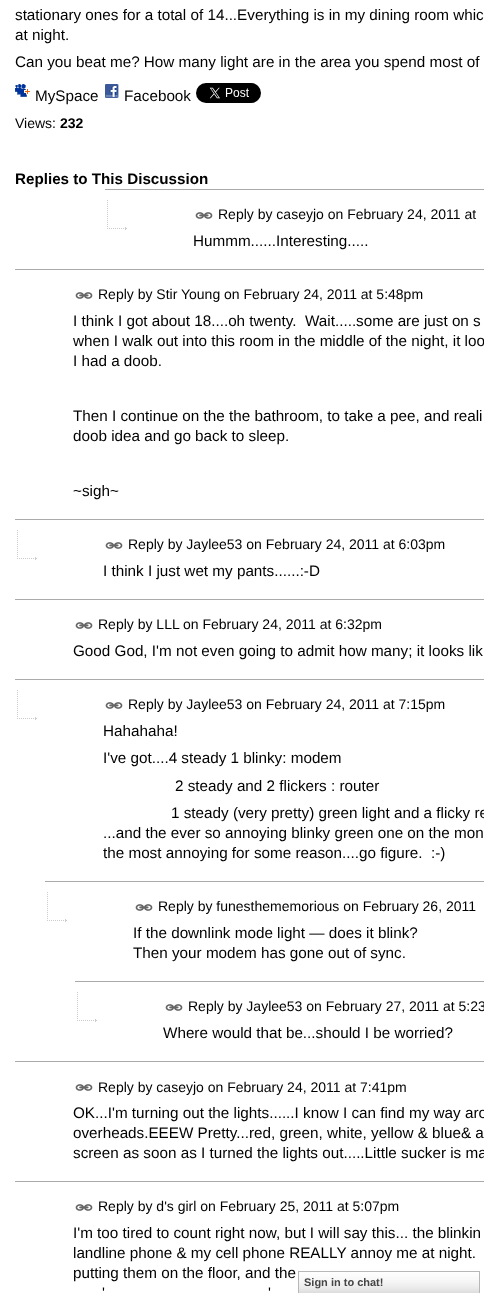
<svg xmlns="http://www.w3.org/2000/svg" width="484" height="1293">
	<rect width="100%" height="100%" fill="#FFFFFF" />
	<g font-family="Liberation Sans" font-size="15.25" fill="#000000">
		<text x="15" y="20">stationary ones for a total of 14...Everything is in my dining room whic</text>
		<text x="15" y="40">at night.</text>
		<text x="15" y="67">Can you beat me? How many light are in the area you spend most of</text>
	</g>
	<image x="15" y="84" width="15" height="13" href="assets/img1.png" />
	<text x="35" y="101" font-family="Liberation Sans" font-size="15.25" fill="#000000">MySpace</text>
	<image x="105" y="84" width="14" height="14" href="assets/img2.png" />
	<text x="124" y="101" font-family="Liberation Sans" font-size="15.25" fill="#000000">Facebook</text>
	<image x="196" y="83" width="65" height="20" href="assets/img3.png" />
	<text x="15" y="128" font-family="Liberation Sans" font-size="14" fill="#000000">Views:</text>
	<text x="60" y="128" font-family="Liberation Sans" font-size="14" font-weight="700" fill="#000000">232</text>
	<text x="15" y="184" font-family="Liberation Sans" font-size="15.2" font-weight="700" fill="#000000">Replies to This Discussion</text>
	<image x="107" y="200" width="20" height="30" href="assets/img4.png" />
	<rect x="105" y="189" width="379" height="1" fill="#AAAAAA" />
	<image x="195" y="212" width="18" height="7" href="assets/img5.png" />
	<text x="218" y="219" font-family="Liberation Sans" font-size="14" fill="#000000">Reply by caseyjo on February 24, 2011 at</text>
	<text x="193" y="246" font-family="Liberation Sans" font-size="15.25" fill="#000000">Hummm......Interesting.....</text>
	<rect x="15" y="269" width="469" height="1" fill="#AAAAAA" />
	<image x="75" y="292" width="18" height="7" href="assets/img5.png" />
	<text x="98" y="299" font-family="Liberation Sans" font-size="14" fill="#000000">Reply by Stir Young on February 24, 2011 at 5:48pm</text>
	<g font-family="Liberation Sans" font-size="15.25" fill="#000000">
		<text x="73" y="326" xml:space="preserve">I think I got about 18....oh twenty.  Wait.....some are just on s</text>
		<text x="73" y="346">when I walk out into this room in the middle of the night, it loo</text>
		<text x="73" y="366">I had a doob.</text>
		<text x="73" y="421">Then I continue on the the bathroom, to take a pee, and reali</text>
		<text x="73" y="441">doob idea and go back to sleep.</text>
		<text x="73" y="496">~sigh~</text>
	</g>
	<image x="17" y="530" width="20" height="30" href="assets/img4.png" />
	<rect x="15" y="519" width="469" height="1" fill="#AAAAAA" />
	<image x="105" y="542" width="18" height="7" href="assets/img5.png" />
	<text x="128" y="549" font-family="Liberation Sans" font-size="14" fill="#000000">Reply by Jaylee53 on February 24, 2011 at 6:03pm</text>
	<text x="103" y="576" font-family="Liberation Sans" font-size="15.25" fill="#000000">I think I just wet my pants......:-D</text>
	<rect x="15" y="599" width="469" height="1" fill="#AAAAAA" />
	<image x="75" y="622" width="18" height="7" href="assets/img5.png" />
	<g font-family="Liberation Sans" font-size="14" fill="#000000">
		<text x="98" y="629">Reply by LLL</text>
		<text x="183" y="629">on February 24, 2011 at 6:32pm</text>
	</g>
	<text x="73" y="656" font-family="Liberation Sans" font-size="15.25" fill="#000000">Good God, I'm not even going to admit how many; it looks lik</text>
	<image x="17" y="690" width="20" height="30" href="assets/img4.png" />
	<rect x="15" y="679" width="469" height="1" fill="#AAAAAA" />
	<image x="105" y="702" width="18" height="7" href="assets/img5.png" />
	<text x="128" y="709" font-family="Liberation Sans" font-size="14" fill="#000000">Reply by Jaylee53 on February 24, 2011 at 7:15pm</text>
	<g font-family="Liberation Sans" font-size="15.25" fill="#000000">
		<text x="103" y="736">Hahahaha!</text>
		<text x="103" y="763">I've got....4 steady 1 blinky: modem</text>
		<text x="175" y="791">2 steady and 2 flickers : router</text>
		<text x="171" y="818">1 steady (very pretty) green light and a flicky re</text>
		<text x="103" y="838">...and the ever so annoying blinky green one on the mon</text>
		<text x="103" y="858" xml:space="preserve">the most annoying for some reason....go figure.  :-)</text>
	</g>
	<image x="47" y="892" width="20" height="30" href="assets/img4.png" />
	<rect x="45" y="881" width="439" height="1" fill="#AAAAAA" />
	<image x="135" y="904" width="18" height="7" href="assets/img5.png" />
	<text x="158" y="911" font-family="Liberation Sans" font-size="14" fill="#000000">Reply by funesthememorious on February 26, 2011</text>
	<g font-family="Liberation Sans" font-size="15.25" fill="#000000">
		<text x="133" y="938">If the downlink mode light — does it blink?</text>
		<text x="133" y="958">Then your modem has gone out of sync.</text>
	</g>
	<image x="77" y="992" width="20" height="30" href="assets/img4.png" />
	<rect x="75" y="981" width="409" height="1" fill="#AAAAAA" />
	<image x="165" y="1004" width="18" height="7" href="assets/img5.png" />
	<text x="188" y="1011" font-family="Liberation Sans" font-size="14" fill="#000000">Reply by Jaylee53 on February 27, 2011 at 5:23</text>
	<text x="163" y="1038" font-family="Liberation Sans" font-size="15.25" fill="#000000">Where would that be...should I be worried?</text>
	<rect x="15" y="1061" width="469" height="1" fill="#AAAAAA" />
	<image x="75" y="1084" width="18" height="7" href="assets/img5.png" />
	<text x="98" y="1092" font-family="Liberation Sans" font-size="14" fill="#000000">Reply by caseyjo on February 24, 2011 at 7:41pm</text>
	<g font-family="Liberation Sans" font-size="15.25" fill="#000000">
		<text x="73" y="1118">OK...I'm turning out the lights......I know I can find my way aro</text>
		<text x="73" y="1138">overheads.EEEW Pretty...red, green, white, yellow &amp; blue&amp; a</text>
		<text x="73" y="1158">screen as soon as I turned the lights out.....Little sucker is ma</text>
	</g>
	<rect x="15" y="1181" width="469" height="1" fill="#AAAAAA" />
	<image x="75" y="1204" width="18" height="7" href="assets/img5.png" />
	<text x="98" y="1211" font-family="Liberation Sans" font-size="14" fill="#000000">Reply by d's girl on February 25, 2011 at 5:07pm</text>
	<g font-family="Liberation Sans" font-size="15.25" fill="#000000">
		<text x="73" y="1238">I'm too tired to count right now, but I will say this... the blinkin</text>
		<text x="73" y="1258">landline phone &amp; my cell phone REALLY annoy me at night.</text>
		<text x="73" y="1278">putting them on the floor, and the</text>
		<text x="102" y="1298">'</text>
		<text x="268" y="1298">'</text>
	</g>
	<image x="299" y="1272" width="180" height="21" href="assets/img6.png" />
	<rect x="298.5" y="1271.5" width="181" height="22" fill="none" stroke="#B7B7B7" />
	<text x="304" y="1286" font-family="Liberation Sans" font-size="11" font-weight="700" fill="#454545">Sign in to chat!</text>
</svg>
